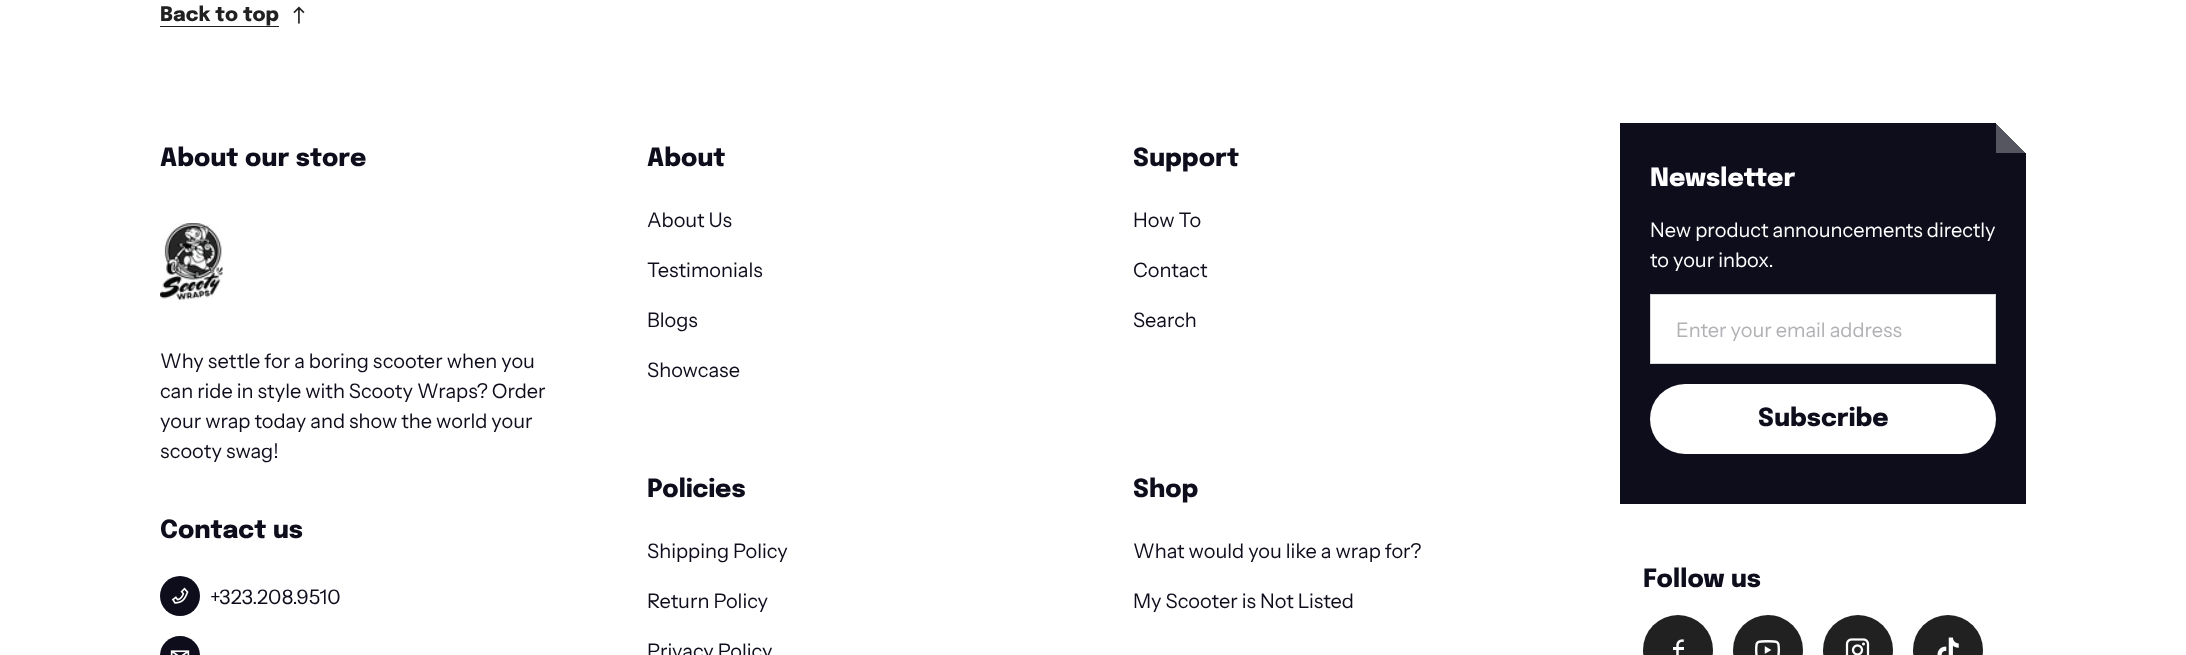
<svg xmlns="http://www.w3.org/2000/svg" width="2186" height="655">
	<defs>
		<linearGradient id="g1" gradientUnits="userSpaceOnUse" x1="1996" y1="153" x2="2026" y2="123"><stop offset="0.5" stop-color="#565660" /><stop offset="0.5" stop-color="#FFFFFF" /></linearGradient>
	</defs>
	<rect width="100%" height="100%" fill="#FFFFFF" />
	<text x="160" y="21" font-family="Epilogue" font-size="20" font-weight="800" fill="#212121">Back to top</text>
	<rect x="160" y="26" width="119" height="1" fill="#212121" />
	<image x="293" y="6" width="12" height="18" href="assets/img1.png" />
	<text x="160" y="166" font-family="Epilogue" font-size="25" font-weight="800" fill="#0E0D1C">About our store</text>
	<image x="160" y="223" width="63" height="77" href="assets/img2.png" />
	<g font-family="Instrument Sans" font-size="20" fill="#0E0D1C">
		<text x="160" y="368">Why settle for a boring scooter when you</text>
		<text x="160" y="398">can ride in style with Scooty Wraps? Order</text>
		<text x="160" y="428">your wrap today and show the world your</text>
		<text x="160" y="458">scooty swag!</text>
	</g>
	<text x="160" y="538" font-family="Epilogue" font-size="25" font-weight="800" fill="#0E0D1C">Contact us</text>
	<circle cx="180" cy="596" r="20" fill="#0E0D1C" />
	<image x="171" y="587" width="18" height="17" href="assets/img3.png" />
	<text x="210" y="604" font-family="Instrument Sans" font-size="20" fill="#0E0D1C">+323.208.9510</text>
	<rect x="160" y="636" width="40" height="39" rx="20" fill="#0E0D1C" />
	<image x="170" y="650" width="20" height="5" href="assets/img4.png" />
	<text x="647" y="166" font-family="Epilogue" font-size="25" font-weight="800" fill="#0E0D1C">About</text>
	<g font-family="Instrument Sans" font-size="20" fill="#0E0D1C">
		<text x="647" y="227">About Us</text>
		<text x="647" y="277">Testimonials</text>
		<text x="647" y="327">Blogs</text>
		<text x="647" y="377">Showcase</text>
	</g>
	<text x="1133" y="166" font-family="Epilogue" font-size="25" font-weight="800" fill="#0E0D1C">Support</text>
	<g font-family="Instrument Sans" font-size="20" fill="#0E0D1C">
		<text x="1133" y="227">How To</text>
		<text x="1133" y="277">Contact</text>
		<text x="1133" y="327">Search</text>
	</g>
	<text x="647" y="497" font-family="Epilogue" font-size="25" font-weight="800" fill="#0E0D1C">Policies</text>
	<g font-family="Instrument Sans" font-size="20" fill="#0E0D1C">
		<text x="647" y="558">Shipping Policy</text>
		<text x="647" y="608">Return Policy</text>
		<text x="647" y="658">Privacy Policy</text>
	</g>
	<text x="1133" y="497" font-family="Epilogue" font-size="25" font-weight="800" fill="#0E0D1C">Shop</text>
	<g font-family="Instrument Sans" font-size="20" fill="#0E0D1C">
		<text x="1133" y="558">What would you like a wrap for?</text>
		<text x="1133" y="608">My Scooter is Not Listed</text>
	</g>
	<rect x="1620" y="123" width="406" height="381" fill="#0E0D1C" />
	<rect x="1996" y="123" width="30" height="30" fill="url(#g1)" />
	<text x="1650" y="186" font-family="Epilogue" font-size="25" font-weight="800" fill="#FFFFFF">Newsletter</text>
	<g font-family="Instrument Sans" font-size="20" fill="#FFFFFF">
		<text x="1650" y="237">New product announcements directly</text>
		<text x="1650" y="267">to your inbox.</text>
	</g>
	<rect x="1650.5" y="294.5" width="345" height="69" fill="#FFFFFF" stroke="#D8D8DB" />
	<text x="1676" y="337" font-family="Instrument Sans" font-size="20" fill="#B2B2B6">Enter your email address</text>
	<rect x="1650" y="384" width="346" height="70" rx="35" fill="#FFFFFF" />
	<g font-family="Epilogue" font-size="25" font-weight="800" fill="#0E0D1C">
		<text x="1758" y="426">Subscribe</text>
		<text x="1643" y="587">Follow us</text>
	</g>
	<circle cx="1678" cy="650" r="35" fill="#212121" />
	<image x="1673" y="639" width="11" height="16" href="assets/img5.png" />
	<circle cx="1768" cy="650" r="35" fill="#212121" />
	<image x="1755" y="640" width="25" height="15" href="assets/img6.png" />
	<circle cx="1858" cy="650" r="35" fill="#212121" />
	<image x="1845" y="638" width="25" height="17" href="assets/img7.png" />
	<circle cx="1948" cy="650" r="35" fill="#212121" />
	<image x="1937" y="637" width="22" height="18" href="assets/img8.png" />
</svg>
